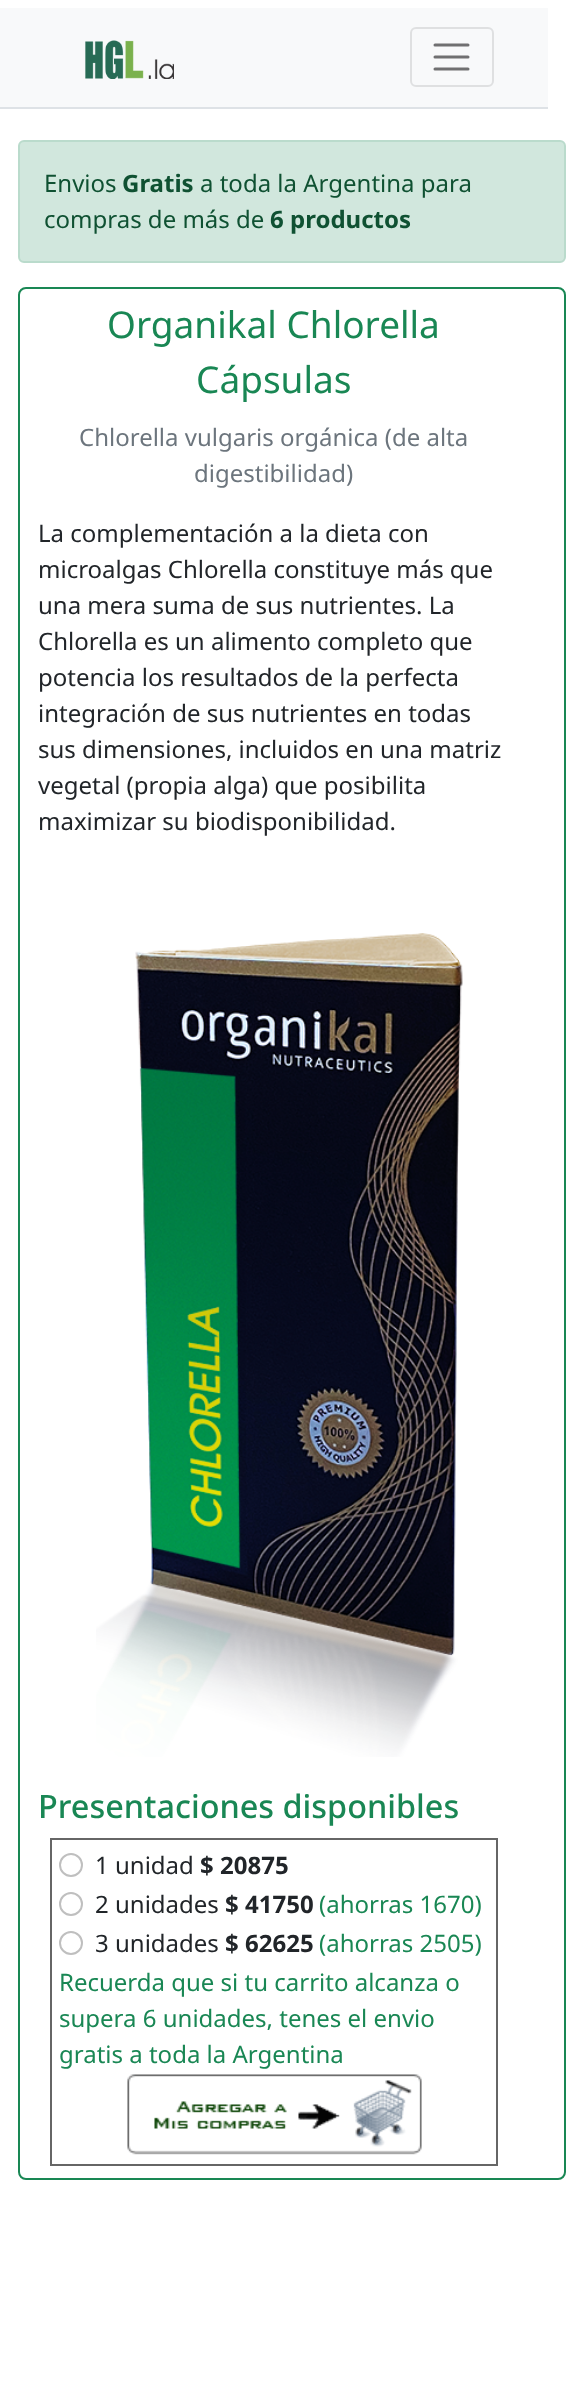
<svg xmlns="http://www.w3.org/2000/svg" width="583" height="2401">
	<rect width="100%" height="100%" fill="#FFFFFF" />
	<rect x="0" y="8" width="548" height="99" fill="#F8F9FA" />
	<rect x="0" y="107" width="548" height="2" fill="#DEE2E6" />
	<image x="85" y="40" width="89" height="39" href="assets/img1.png" />
	<rect x="411" y="28" width="82" height="58" rx="5" fill="none" stroke="#DFE0E1" stroke-width="2" />
	<path d="M435 45H468M435 57H468M435 69H468" fill="none" stroke="#707071" stroke-width="3" stroke-linecap="round" />
	<rect x="19" y="141" width="546" height="121" rx="5" fill="#D1E7DD" stroke="#BADBCC" stroke-width="2" />
	<text x="44" y="192" font-family="Noto Sans" font-size="24" fill="#0F5132">Envios</text>
	<text x="122" y="192" font-family="Noto Sans" font-size="24" font-weight="700" fill="#0F5132">Gratis</text>
	<g font-family="Noto Sans" font-size="24" fill="#0F5132">
		<text x="200" y="192">a toda la Argentina para</text>
		<text x="44" y="228">compras de más de</text>
	</g>
	<text x="270" y="228" font-family="Noto Sans" font-size="24" font-weight="700" fill="#0F5132">6 productos</text>
	<rect x="19" y="288" width="546" height="1891" rx="7" fill="none" stroke="#198754" stroke-width="2" />
	<g font-family="Noto Sans" font-size="37" fill="#198754">
		<text x="107" y="338">Organikal Chlorella</text>
		<text x="196" y="393">Cápsulas</text>
	</g>
	<g font-family="Noto Sans" font-size="24" fill="#6C757D">
		<text x="79" y="446">Chlorella vulgaris orgánica (de alta</text>
		<text x="194" y="482">digestibilidad)</text>
	</g>
	<g font-family="Noto Sans" font-size="24" fill="#212529">
		<text x="38" y="542">La complementación a la dieta con</text>
		<text x="38" y="578">microalgas Chlorella constituye más que</text>
		<text x="38" y="614">una mera suma de sus nutrientes. La</text>
		<text x="38" y="650">Chlorella es un alimento completo que</text>
		<text x="38" y="686">potencia los resultados de la perfecta</text>
		<text x="38" y="722">integración de sus nutrientes en todas</text>
		<text x="38" y="758">sus dimensiones, incluidos en una matriz</text>
		<text x="38" y="794">vegetal (propia alga) que posibilita</text>
		<text x="38" y="830">maximizar su biodisponibilidad.</text>
	</g>
	<image x="96" y="933" width="367" height="824" href="assets/img2.png" />
	<text x="38" y="1818" font-family="Noto Sans" font-size="32.4" font-weight="500" fill="#198754">Presentaciones disponibles</text>
	<rect x="51" y="1839" width="446" height="326" fill="none" stroke="#666666" stroke-width="2" />
	<circle cx="71" cy="1865" r="11" fill="none" stroke="#BFBFBF" stroke-width="2" />
	<text x="95" y="1874" font-family="Noto Sans" font-size="24" fill="#212529">1 unidad</text>
	<text x="200" y="1874" font-family="Noto Sans" font-size="24" font-weight="700" fill="#212529">$ 20875</text>
	<circle cx="71" cy="1904" r="11" fill="none" stroke="#BFBFBF" stroke-width="2" />
	<text x="95" y="1913" font-family="Noto Sans" font-size="24" fill="#212529">2 unidades</text>
	<text x="225" y="1913" font-family="Noto Sans" font-size="24" font-weight="700" fill="#212529">$ 41750</text>
	<text x="319" y="1913" font-family="Noto Sans" font-size="24" fill="#198754">(ahorras 1670)</text>
	<circle cx="71" cy="1943" r="11" fill="none" stroke="#BFBFBF" stroke-width="2" />
	<text x="95" y="1952" font-family="Noto Sans" font-size="24" fill="#212529">3 unidades</text>
	<text x="225" y="1952" font-family="Noto Sans" font-size="24" font-weight="700" fill="#212529">$ 62625</text>
	<g font-family="Noto Sans" font-size="24" fill="#198754">
		<text x="319" y="1952">(ahorras 2505)</text>
		<text x="59" y="1991">Recuerda que si tu carrito alcanza o</text>
		<text x="59" y="2027">supera 6 unidades, tenes el envio</text>
		<text x="59" y="2063">gratis a toda la Argentina</text>
	</g>
	<image x="127" y="2074" width="295" height="81" href="assets/img3.png" />
</svg>
